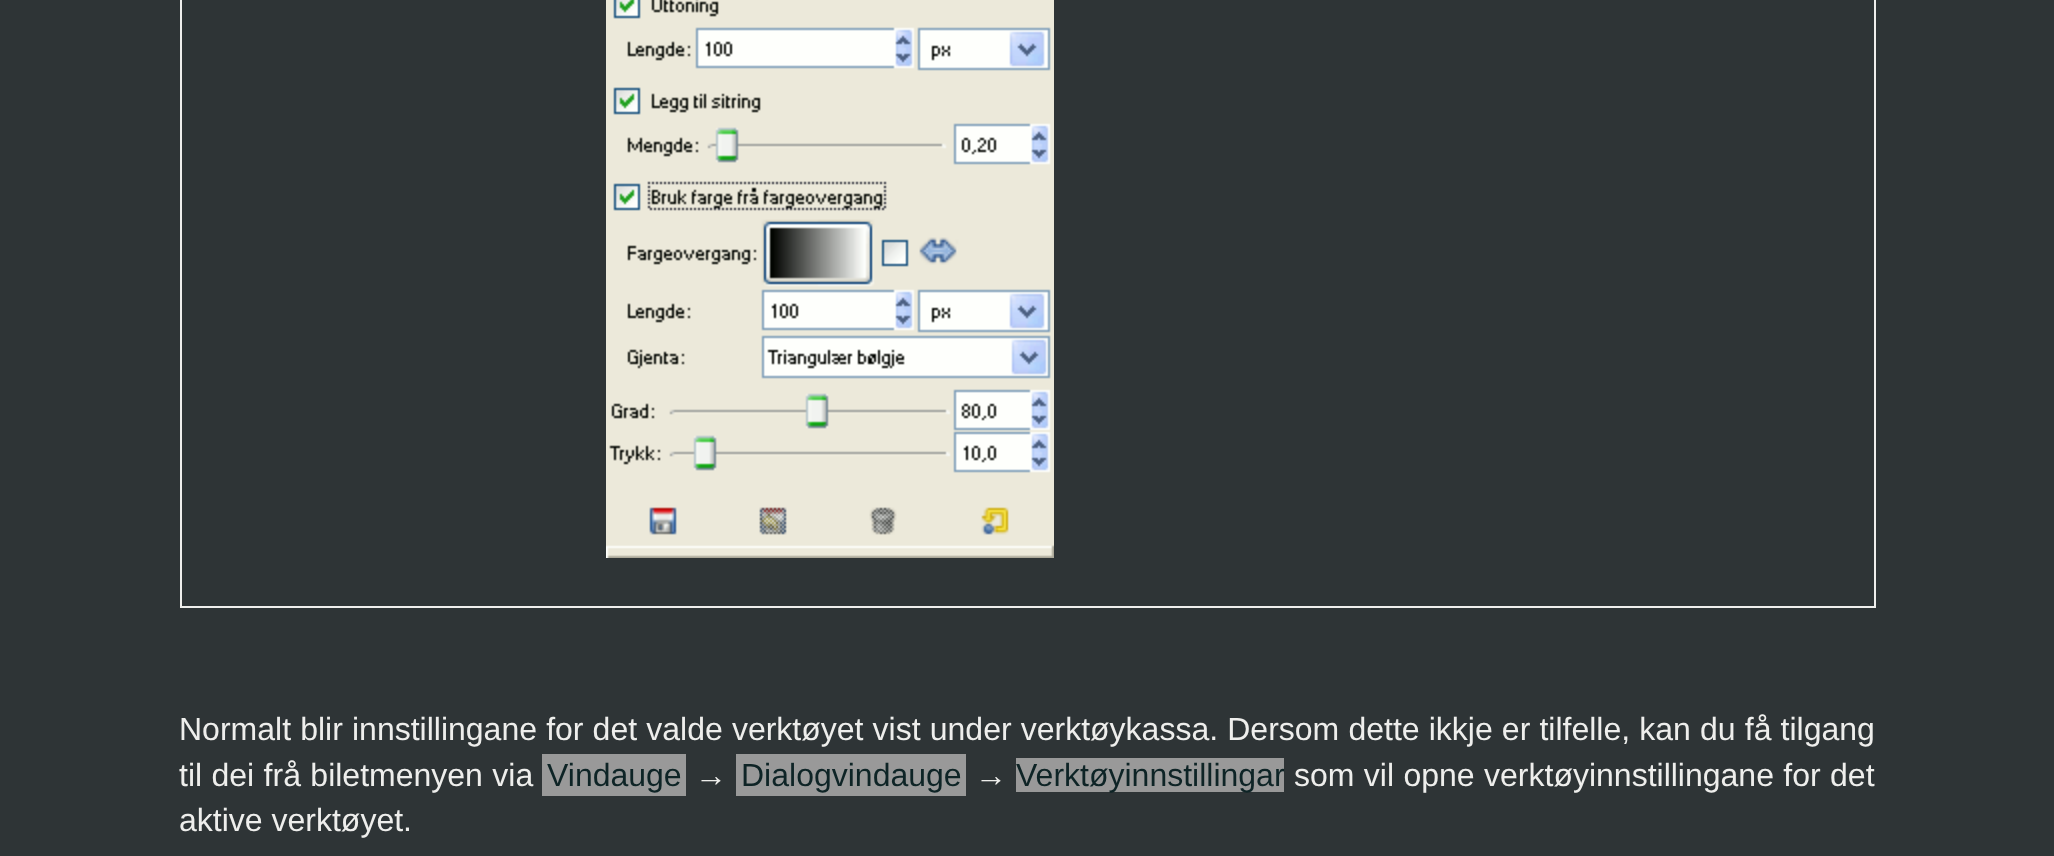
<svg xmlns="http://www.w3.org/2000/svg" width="2054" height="856">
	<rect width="100%" height="100%" fill="#2E3436" />
	<rect x="181" y="-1" width="1694" height="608" fill="none" stroke="#EEEEEC" stroke-width="2" />
	<image x="606" y="0" width="448" height="558" href="assets/img1.png" />
	<g font-family="Liberation Sans" font-size="32" fill="#EEEEEC">
		<text x="179" y="740" word-spacing="0.25">Normalt blir innstillingane for det valde verktøyet vist under verktøykassa. Dersom dette ikkje er tilfelle, kan du få tilgang</text>
		<text x="179" y="786" word-spacing="0.5">til dei frå biletmenyen via</text>
	</g>
	<rect x="542" y="754" width="144" height="42" fill="#999999" />
	<text x="547" y="786" font-family="Liberation Sans" font-size="32" fill="#0E2426">Vindauge</text>
	<text x="695" y="786" font-family="Liberation Sans" font-size="32" fill="#EEEEEC">→</text>
	<rect x="736" y="754" width="230" height="42" fill="#999999" />
	<text x="741" y="786" font-family="Liberation Sans" font-size="32" fill="#0E2426">Dialogvindauge</text>
	<text x="975" y="786" font-family="Liberation Sans" font-size="32" fill="#EEEEEC">→</text>
	<rect x="1016" y="758" width="268" height="34" fill="#999999" />
	<text x="1016" y="786" font-family="Liberation Sans" font-size="32" fill="#0E2426">Verktøyinnstillingar</text>
	<g font-family="Liberation Sans" font-size="32" fill="#EEEEEC">
		<text x="1294" y="786" word-spacing="0.5">som vil opne verktøyinnstillingane for det</text>
		<text x="179" y="831">aktive verktøyet.</text>
	</g>
</svg>
